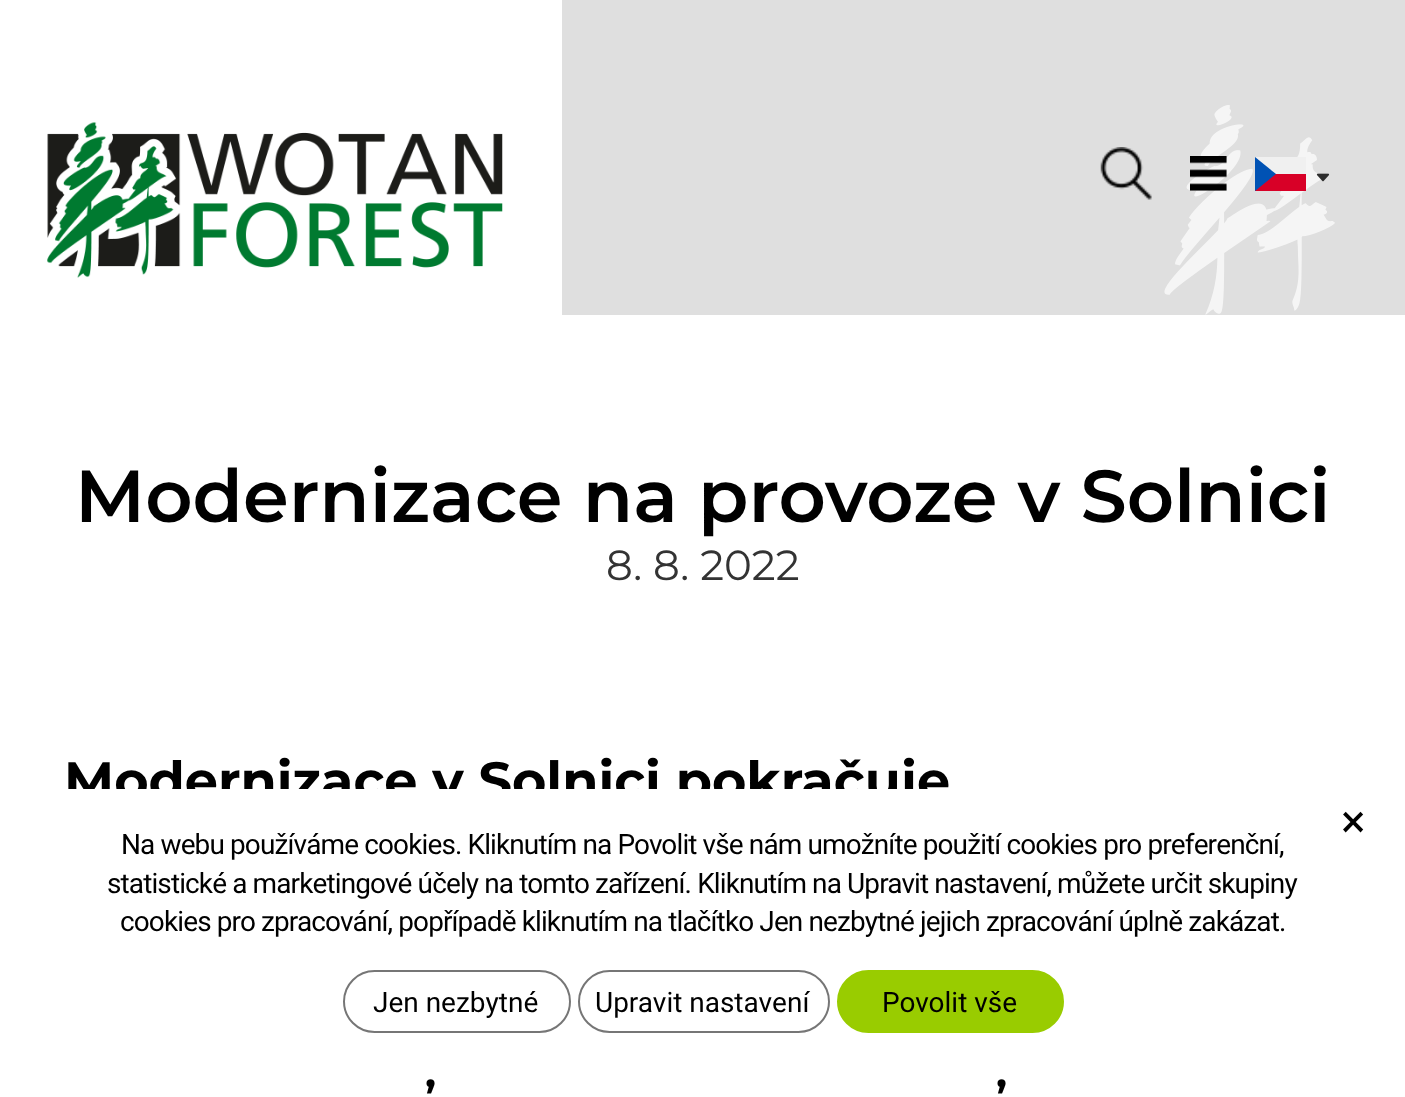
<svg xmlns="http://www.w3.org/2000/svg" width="1405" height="1097">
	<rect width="100%" height="100%" fill="#FFFFFF" />
	<rect x="562" y="0" width="843" height="315" fill="#DFDFDF" />
	<image x="1164" y="105" width="171" height="210" href="assets/img1.png" />
	<image x="47" y="122" width="456" height="156" href="assets/img2.png" />
	<image x="1100" y="147" width="52" height="53" href="assets/img3.png" />
	<image x="1190" y="156" width="37" height="35" href="assets/img4.png" />
	<rect x="1255" y="157" width="21" height="34" fill="#0052B4" />
	<path d="M1306 157V174H1276L1255 157Z" fill="#F0F0F0" />
	<path d="M1306 174V191H1255L1276 174Z" fill="#D80027" />
	<image x="1316" y="173" width="14" height="9" href="assets/img5.png" />
	<text x="75" y="522" font-family="Montserrat" font-size="73.5" font-weight="100" fill="#000000">Modernizace na provoze v Solnici</text>
	<text x="606" y="580" font-family="'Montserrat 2'" font-size="42" font-weight="100" fill="#333333">8. 8. 2022</text>
	<text x="64" y="799" font-family="'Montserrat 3'" font-size="52.5" font-weight="100" fill="#000000">Modernizace v Solnici pokračuje</text>
	<g font-family="'Montserrat 3'" font-size="42" font-weight="100" fill="#000000">
		<text x="425" y="1087">,</text>
		<text x="996" y="1087">,</text>
	</g>
	<rect x="23" y="789" width="1361" height="282" rx="25" fill="#FFFFFF" />
	<text x="1341" y="837" font-family="Roboto" font-size="46" fill="#000000">×</text>
	<g font-family="Roboto" font-size="28" letter-spacing="-0.88" fill="#000000">
		<text x="121" y="854">Na webu používáme cookies. Kliknutím na Povolit vše nám umožníte použití cookies pro preferenční,</text>
		<text x="107" y="893">statistické a marketingové účely na tomto zařízení. Kliknutím na Upravit nastavení, můžete určit skupiny</text>
		<text x="120" y="931">cookies pro zpracování, popřípadě kliknutím na tlačítko Jen nezbytné jejich zpracování úplně zakázat.</text>
	</g>
	<rect x="344" y="971" width="226" height="61" rx="30.5" fill="none" stroke="#767676" stroke-width="2" />
	<text x="373" y="1012" font-family="Roboto" font-size="28" fill="#000000">Jen nezbytné</text>
	<rect x="579" y="971" width="250" height="61" rx="30.5" fill="none" stroke="#767676" stroke-width="2" />
	<text x="595" y="1012" font-family="Roboto" font-size="28" fill="#000000">Upravit nastavení</text>
	<rect x="838" y="971" width="225" height="61" rx="30.5" fill="#99CC00" stroke="#99CC00" stroke-width="2" />
	<text x="882" y="1012" font-family="Roboto" font-size="28" fill="#000000">Povolit vše</text>
</svg>
